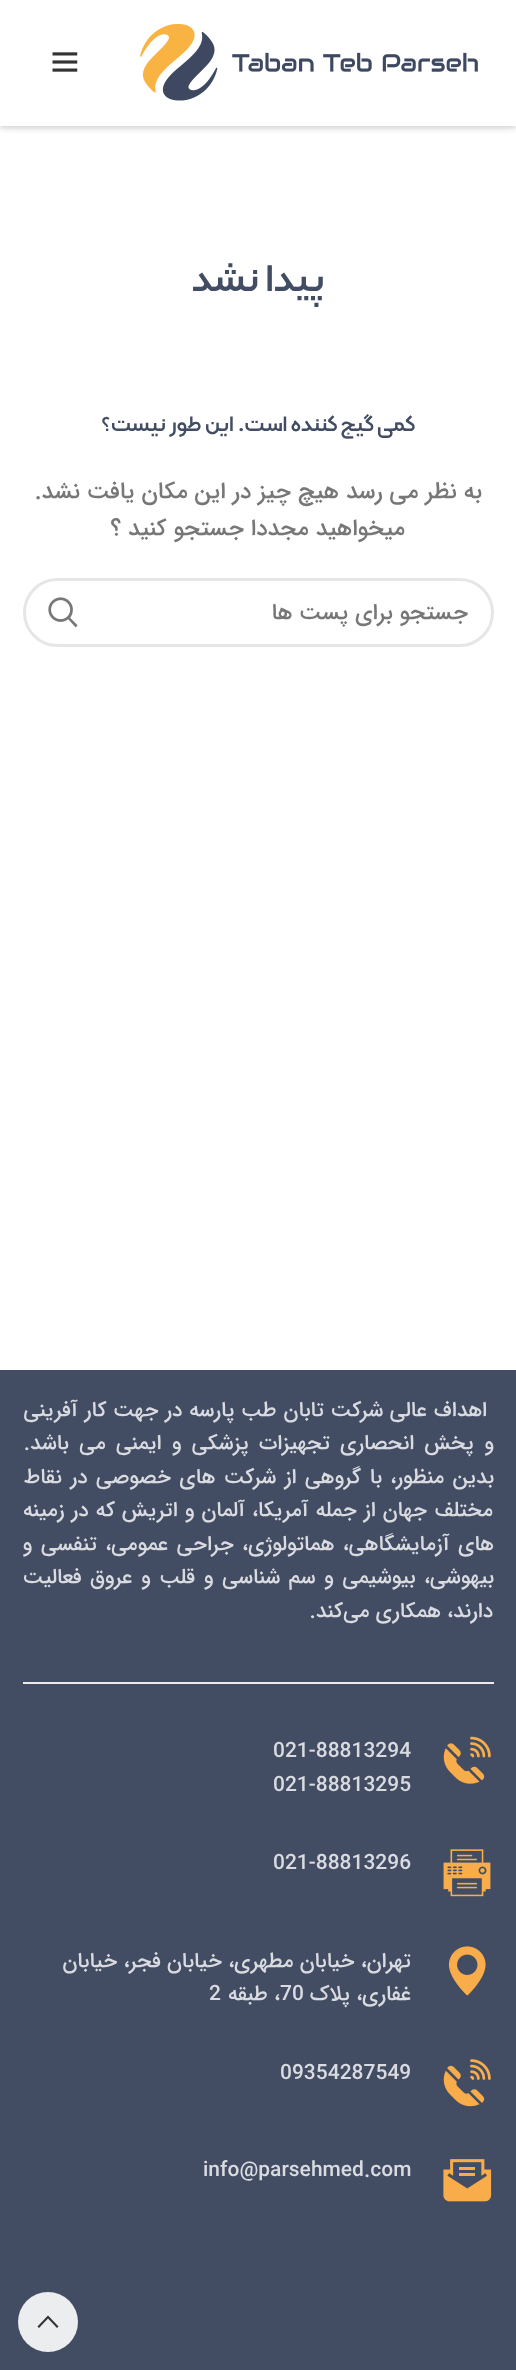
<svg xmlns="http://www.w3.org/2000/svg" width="516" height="2370">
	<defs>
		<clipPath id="clip1"><rect x="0" y="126" width="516" height="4" /></clipPath>
		<clipPath id="clip2"><rect x="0" y="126" width="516" height="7" /></clipPath>
	</defs>
	<rect width="100%" height="100%" fill="#FFFFFF" />
	<g clip-path="url(#clip1)">
		<rect x="0" y="2" width="516" height="126" fill="#000000" fill-opacity="0.1" filter="blur(2px)" />
	</g>
	<g clip-path="url(#clip2)">
		<rect x="0" y="2" width="516" height="126" fill="#000000" fill-opacity="0.1" filter="blur(6px)" />
	</g>
	<image x="140" y="24" width="338" height="77" href="assets/img1.png" />
	<image x="52" y="52" width="26" height="20" href="assets/img2.png" />
	<text x="324" y="291" font-family="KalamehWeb" font-size="48" font-weight="700" direction="rtl" fill="#424C62">پیدا نشد</text>
	<text x="415" y="431" font-family="KalamehWeb" font-size="27" font-weight="700" direction="rtl" fill="#424C62">کمی گیج کننده است. این طور نیست؟</text>
	<g font-family="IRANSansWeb" font-size="23.1" font-weight="500" direction="rtl" fill="#777777">
		<text x="482" y="498">به نظر می رسد هیچ چیز در این مکان یافت نشد.</text>
		<text x="405" y="535">میخواهید مجددا جستجو کنید ؟</text>
	</g>
	<rect x="24.5" y="579.5" width="468" height="66" rx="33" fill="none" stroke="#E6E6E6" stroke-width="3" />
	<text x="468" y="619" font-family="IRANSansWeb" font-size="22.5" font-weight="500" direction="rtl" fill="#777777">جستجو برای پست ها</text>
	<image x="48" y="597" width="30" height="31" href="assets/img3.png" />
	<rect x="0" y="1370" width="516" height="1000" fill="#424C62" />
	<g font-family="IRANSansWeb" font-size="21" font-weight="500" direction="rtl" fill="#D9DBE0">
		<text x="487" y="1416" word-spacing="0.5">اهداف عالی شرکت تابان طب پارسه در جهت کار آفرینی</text>
		<text x="494" y="1449" word-spacing="4">و پخش انحصاری تجهیزات پزشکی و ایمنی می باشد.</text>
		<text x="494" y="1483" word-spacing="2.25">بدین منظور، با گروهی از شرکت های خصوصی در نقاط</text>
		<text x="493" y="1516" word-spacing="0.75">مختلف جهان از جمله آمریکا، آلمان و اتریش که در زمینه</text>
		<text x="494" y="1550" word-spacing="2.25">های آزمایشگاهی، هماتولوژی، جراحی عمومی، تنفسی و</text>
		<text x="494" y="1583" word-spacing="2.25">بیهوشی، بیوشیمی و سم شناسی و قلب و عروق فعالیت</text>
		<text x="493" y="1617">دارند، همکاری می‌کند.</text>
	</g>
	<rect x="23" y="1682" width="471" height="2" fill="#EBEBEB" />
	<image x="443" y="1736" width="48" height="48" href="assets/img4.png" />
	<g font-family="IRANSansWeb" font-size="21" font-weight="500" fill="#D9DBE0">
		<text x="273" y="1757">021-88813294</text>
		<text x="273" y="1791">021-88813295</text>
	</g>
	<image x="443" y="1849" width="48" height="48" href="assets/img5.png" />
	<text x="273" y="1869" font-family="IRANSansWeb" font-size="21" font-weight="500" fill="#D9DBE0">021-88813296</text>
	<image x="448" y="1946" width="38" height="50" href="assets/img6.png" />
	<g font-family="IRANSansWeb" font-size="21" font-weight="500" direction="rtl" fill="#D9DBE0">
		<text x="411" y="1967">تهران، خیابان مطهری، خیابان فجر، خیابان</text>
		<text x="411" y="2000">غفاری، پلاک</text>
	</g>
	<text x="280" y="2000" font-family="IRANSansWeb" font-size="21" font-weight="500" fill="#D9DBE0">70</text>
	<text x="280" y="2000" font-family="IRANSansWeb" font-size="21" font-weight="500" direction="rtl" fill="#D9DBE0">، طبقه</text>
	<text x="209" y="2000" font-family="IRANSansWeb" font-size="21" font-weight="500" fill="#D9DBE0">2</text>
	<image x="443" y="2059" width="48" height="48" href="assets/img7.png" />
	<text x="280" y="2079" font-family="IRANSansWeb" font-size="21" font-weight="500" fill="#D9DBE0">09354287549</text>
	<image x="443" y="2159" width="49" height="43" href="assets/img8.png" />
	<text x="203" y="2176" font-family="IRANSansWeb" font-size="21" font-weight="500" fill="#D9DBE0">info@parsehmed.com</text>
	<circle cx="48" cy="2322" r="30" fill="#FFFFFF" fill-opacity="0.9" />
	<path d="M48 2315.5L58.5 2326.5L57 2328L48 2318.5L39 2328L37.5 2326.5Z" fill="#333333" />
</svg>
